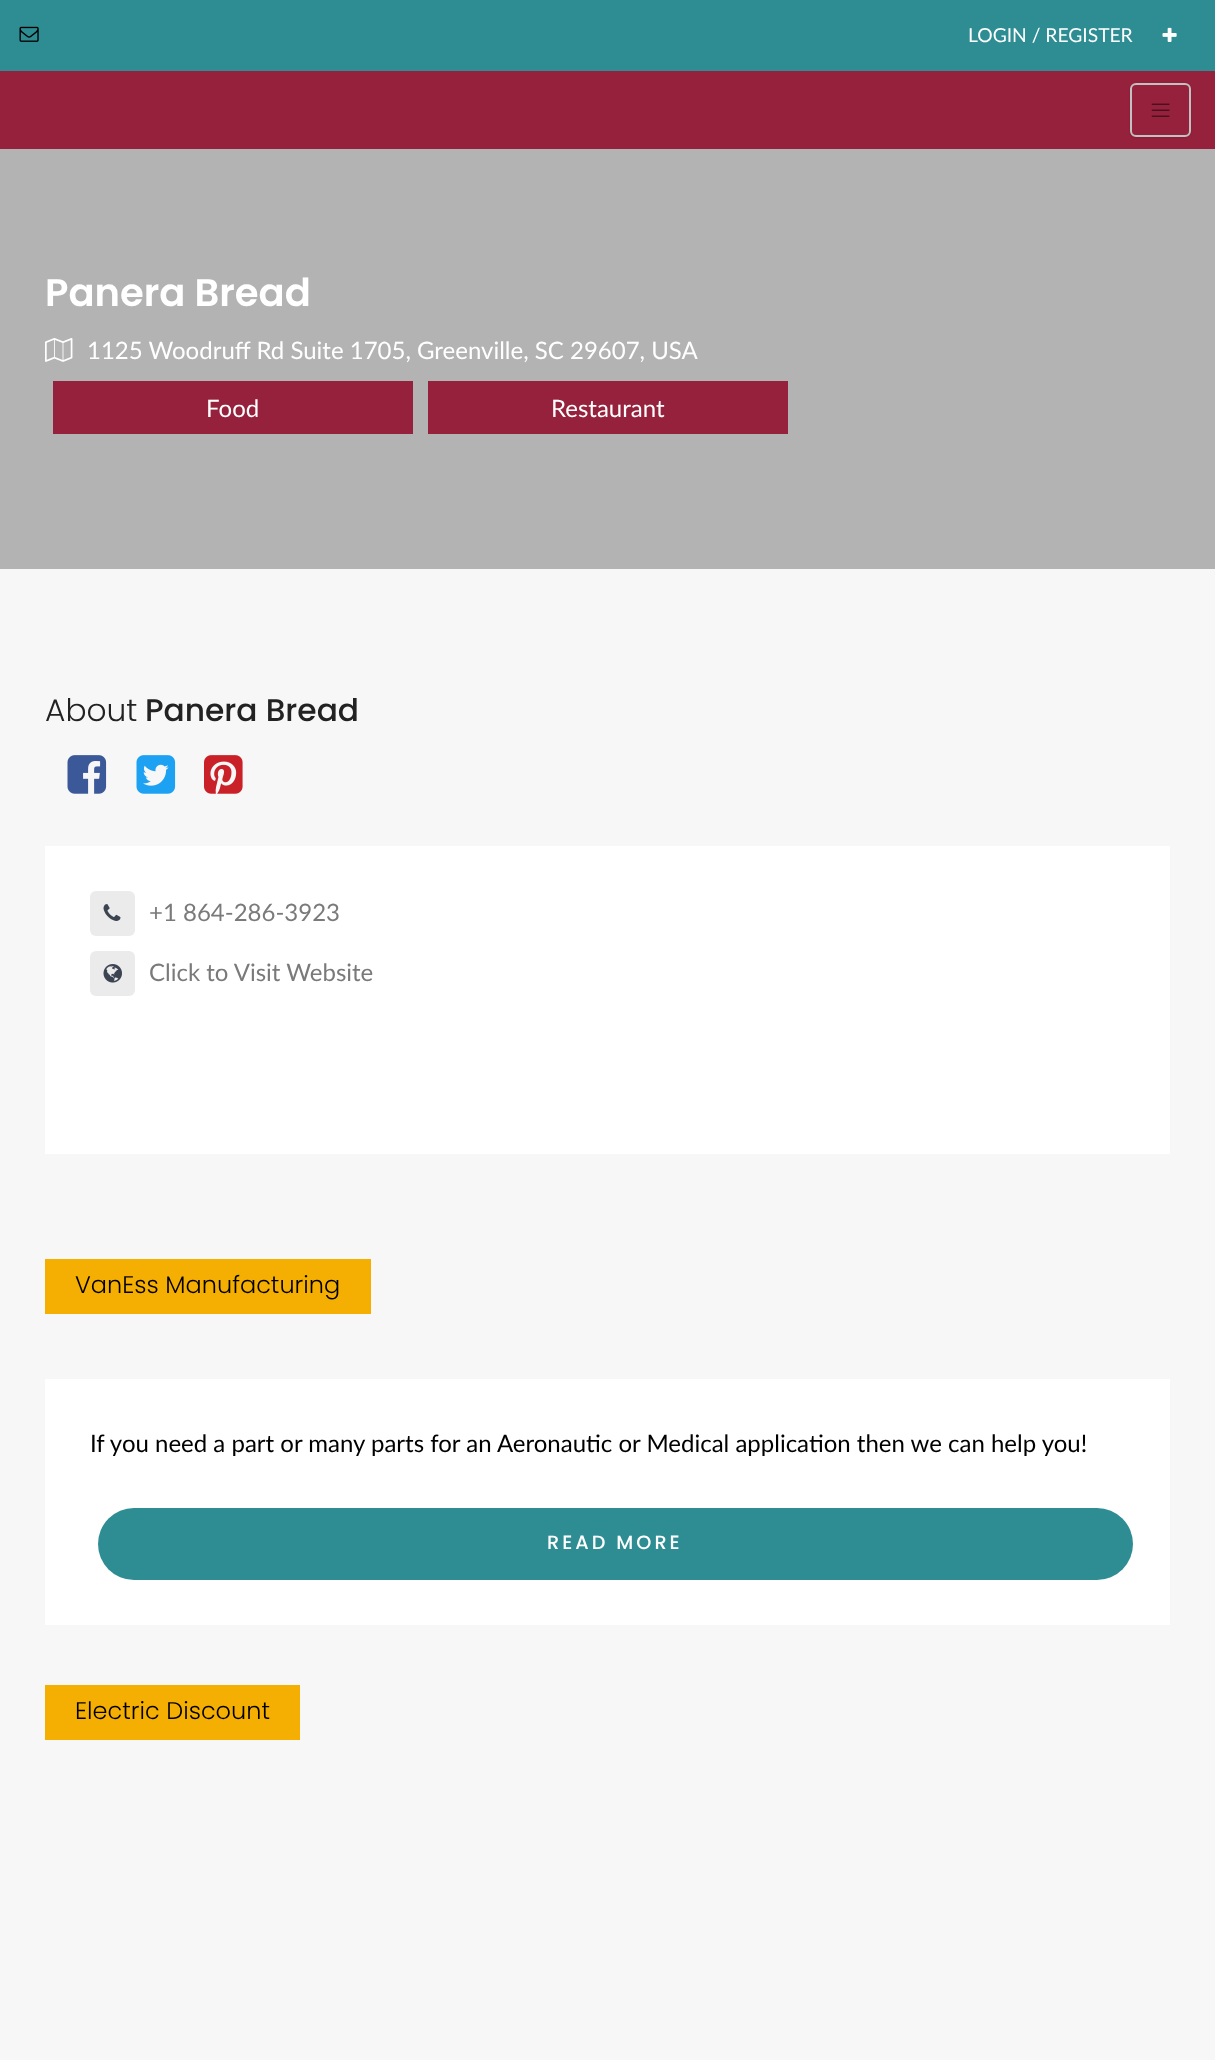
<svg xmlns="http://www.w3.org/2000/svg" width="1215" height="2060">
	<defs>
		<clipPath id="clip1"><path d="M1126 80H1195V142H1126ZM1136 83H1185C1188.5 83 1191 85.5 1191 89V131C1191 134.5 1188.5 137 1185 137H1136C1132.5 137 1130 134.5 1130 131V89C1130 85.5 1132.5 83 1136 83Z" clip-rule="evenodd" /></clipPath>
	</defs>
	<rect width="100%" height="100%" fill="#2D8D93" />
	<image x="19" y="26" width="20" height="16" href="assets/img1.png" />
	<text x="968" y="42" font-family="Lato" font-size="19.25" fill="#FFFFFF">LOGIN / REGISTER</text>
	<image x="1162" y="27" width="15" height="15" href="assets/img2.png" />
	<rect x="0" y="71" width="1215" height="78" fill="#96213C" />
	<g clip-path="url(#clip1)">
		<rect x="1130" y="84" width="61" height="54" rx="6" fill="#000000" fill-opacity="0.1" filter="blur(1px)" />
	</g>
	<rect x="1131" y="84" width="59" height="52" rx="5" fill="none" stroke="#C1C1C1" stroke-width="2" />
	<image x="1151" y="103" width="19" height="14" href="assets/img3.png" />
	<rect x="0" y="149" width="1215" height="420" fill="#B3B3B3" />
	<text x="45" y="306" font-family="Poppins" font-size="38.5" font-weight="600" fill="#FFFFFF">Panera Bread</text>
	<image x="45" y="338" width="28" height="24" href="assets/img4.png" />
	<text x="87" y="359" font-family="Lato" font-size="24" fill="#FFFFFF">1125 Woodruff Rd Suite 1705, Greenville, SC 29607, USA</text>
	<rect x="53" y="381" width="360" height="53" fill="#96213C" />
	<text x="206" y="417" font-family="Lato" font-size="24" fill="#FFFFFF">Food</text>
	<rect x="428" y="381" width="360" height="53" fill="#96213C" />
	<text x="551" y="417" font-family="Lato" font-size="24" fill="#FFFFFF">Restaurant</text>
	<rect x="0" y="569" width="1215" height="1491" fill="#F7F7F7" />
	<text x="45" y="721" font-family="Poppins" font-size="31.25" font-weight="300" fill="#222222">About</text>
	<text x="145" y="721" font-family="Poppins" font-size="31.25" font-weight="500" fill="#222222">Panera Bread</text>
	<image x="67" y="755" width="40" height="39" href="assets/img5.png" />
	<image x="136" y="755" width="40" height="39" href="assets/img6.png" />
	<image x="204" y="755" width="39" height="39" href="assets/img7.png" />
	<rect x="45" y="846" width="1125" height="308" fill="#FFFFFF" />
	<rect x="90" y="891" width="45" height="45" rx="6" fill="#EBEBEB" />
	<image x="103" y="904" width="18" height="17" href="assets/img8.png" />
	<text x="149" y="921" font-family="Lato" font-size="24" fill="#7A7A7A">+1 864-286-3923</text>
	<rect x="90" y="951" width="45" height="45" rx="6" fill="#EBEBEB" />
	<image x="103" y="964" width="19" height="19" href="assets/img9.png" />
	<text x="149" y="981" font-family="Lato" font-size="24" fill="#7A7A7A">Click to Visit Website</text>
	<rect x="45" y="1259" width="326" height="55" fill="#F5AF02" />
	<text x="75" y="1293" font-family="Poppins" font-size="24" font-weight="300" fill="#000000">VanEss Manufacturing</text>
	<rect x="45" y="1379" width="1125" height="246" fill="#FFFFFF" />
	<text x="90" y="1452" font-family="Lato" font-size="24" fill="#000000">If you need a part or many parts for an Aeronautic or Medical application then we can help you!</text>
	<rect x="98" y="1508" width="1035" height="72" rx="36" fill="#2D8D93" />
	<text x="547" y="1549" font-family="Poppins" font-size="19.25" font-weight="500" letter-spacing="3" fill="#FFFFFF">READ MORE</text>
	<rect x="45" y="1685" width="255" height="55" fill="#F5AF02" />
	<text x="75" y="1719" font-family="Poppins" font-size="24" font-weight="300" fill="#000000">Electric Discount</text>
</svg>
